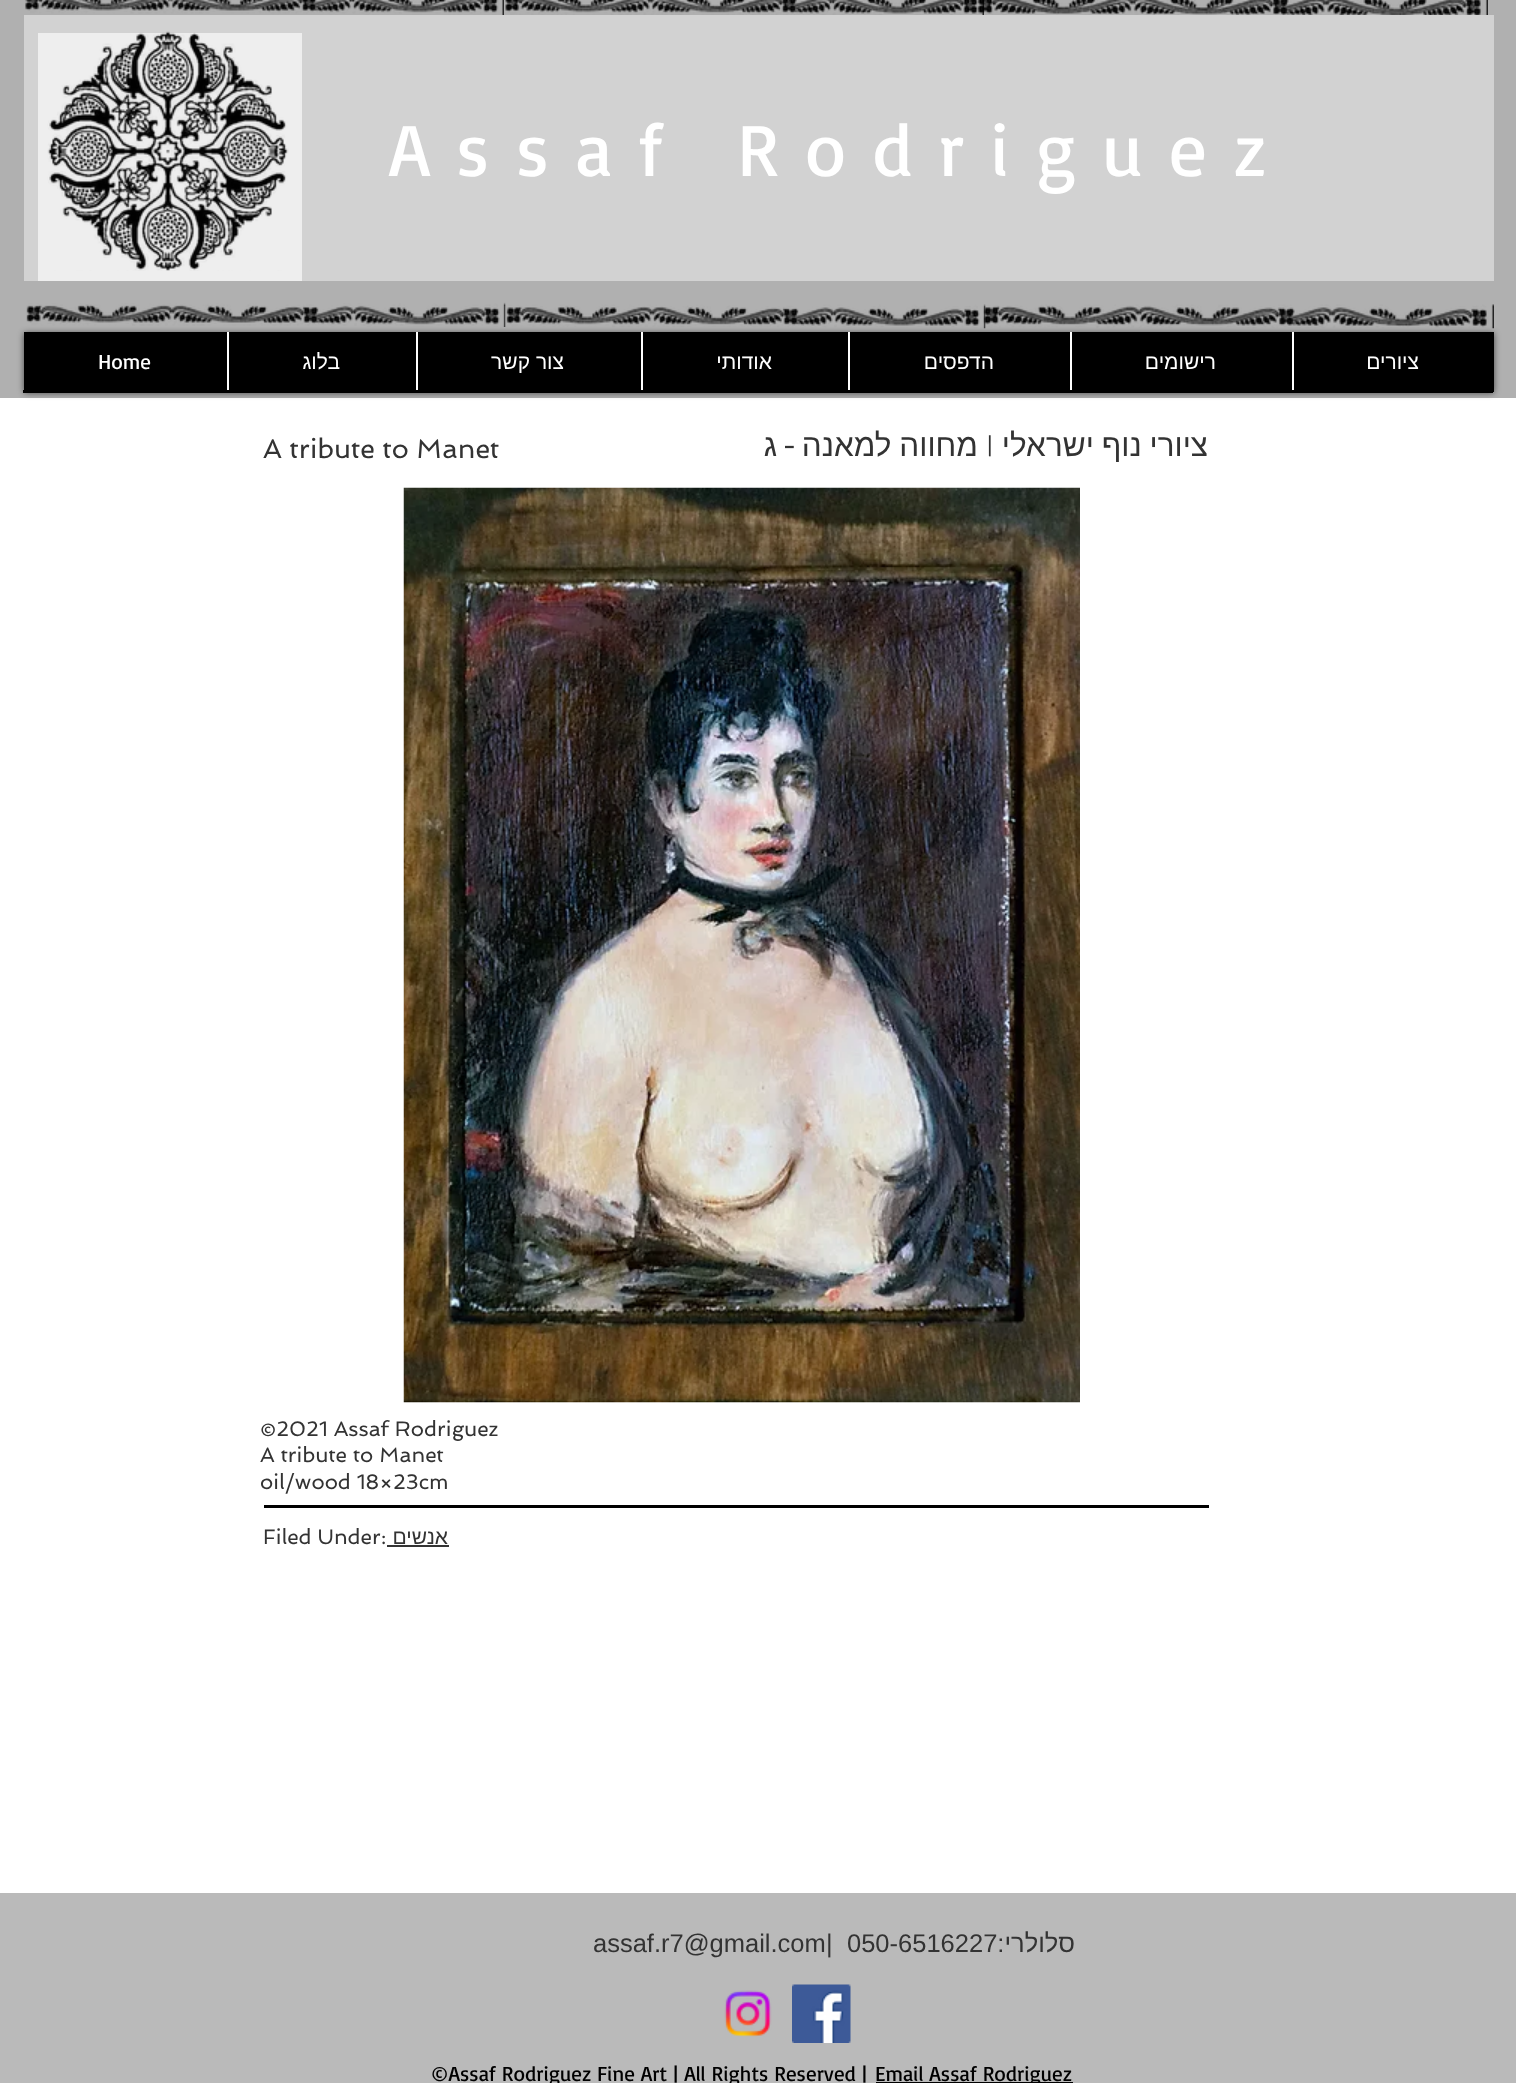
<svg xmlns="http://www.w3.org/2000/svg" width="1516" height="2083">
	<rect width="100%" height="100%" fill="#FFFFFF" />
	<rect x="0" y="0" width="1516" height="398" fill="#B0B0B0" />
	<image x="25" y="0" width="479" height="15" href="assets/img1.png" />
	<image x="505" y="0" width="479" height="15" href="assets/img2.png" />
	<image x="977" y="0" width="511" height="15" href="assets/img3.png" />
	<rect x="24" y="15" width="1470" height="266" fill="#D2D2D2" />
	<rect x="38" y="33" width="264" height="248" fill="#EEEEEE" />
	<image x="47" y="31" width="242" height="240" href="assets/img4.png" />
	<text x="389" y="176" font-family="Basic" font-size="75" letter-spacing="26.25" fill="#FFFFFF">Assaf Rodriguez</text>
	<image x="26" y="302" width="480" height="25" href="assets/img5.png" />
	<image x="983" y="304" width="511" height="25" href="assets/img7.png" />
	<image x="506" y="304" width="480" height="25" href="assets/img6.png" />
	<rect x="24" y="333" width="1470" height="60" fill="#000000" fill-opacity="0.6" filter="blur(3px)" />
	<rect x="24" y="332" width="1470" height="60" fill="#000000" />
	<text x="98" y="369" font-family="Basic" font-size="21" fill="#FFFFFF">Home</text>
	<rect x="227" y="332" width="2" height="60" fill="#FFFFFF" />
	<text x="340" y="369" font-family="Liberation Sans" font-size="21" direction="rtl" fill="#FFFFFF">בלוג</text>
	<rect x="416" y="332" width="2" height="60" fill="#FFFFFF" />
	<text x="564" y="369" font-family="Liberation Sans" font-size="21" direction="rtl" fill="#FFFFFF">צור קשר</text>
	<rect x="641" y="332" width="2" height="60" fill="#FFFFFF" />
	<text x="772" y="369" font-family="Liberation Sans" font-size="21" direction="rtl" fill="#FFFFFF">אודותי</text>
	<rect x="848" y="332" width="2" height="60" fill="#FFFFFF" />
	<text x="994" y="369" font-family="Liberation Sans" font-size="21" direction="rtl" fill="#FFFFFF">הדפסים</text>
	<rect x="1070" y="332" width="2" height="60" fill="#FFFFFF" />
	<text x="1216" y="369" font-family="Liberation Sans" font-size="21" direction="rtl" fill="#FFFFFF">רישומים</text>
	<rect x="1292" y="332" width="2" height="60" fill="#FFFFFF" />
	<text x="1419" y="369" font-family="Liberation Sans" font-size="21" direction="rtl" fill="#FFFFFF">ציורים</text>
	<rect x="23" y="390" width="1470" height="3" fill="#000000" />
	<text x="263" y="458" font-family="Spinnaker" font-size="27" fill="#333333">A tribute to Manet</text>
	<text x="777" y="456" font-family="Liberation Sans" font-size="31.5" direction="rtl" fill="#333333">ג</text>
	<text x="795" y="456" font-family="Play" font-size="31.5" direction="rtl" fill="#333333">-</text>
	<text x="978" y="456" word-spacing="-1" font-family="Liberation Sans" font-size="31.5" direction="rtl" fill="#333333">מחווה למאנה</text>
	<text x="995" y="456" font-family="Play" font-size="31.5" direction="rtl" fill="#333333">|</text>
	<text x="1208" y="456" word-spacing="-1" font-family="Liberation Sans" font-size="31.5" direction="rtl" fill="#333333">ציורי נוף ישראלי</text>
	<image x="403" y="487" width="677" height="916" href="assets/img8.png" />
	<g font-family="Spinnaker" font-size="21" fill="#333333">
		<text x="260" y="1436">©2021 Assaf Rodriguez</text>
		<text x="260" y="1462">A tribute to Manet</text>
		<text x="260" y="1489">oil/wood 18×23cm</text>
	</g>
	<rect x="264" y="1505" width="945" height="3" fill="#000000" />
	<text x="263" y="1544" font-family="Spinnaker" font-size="21" fill="#333333">Filed Under:</text>
	<text x="448" y="1544" font-family="Liberation Sans" font-size="21" direction="rtl" fill="#333333">אנשים</text>
	<rect x="387" y="1545" width="62" height="2" fill="#333333" />
	<rect x="0" y="1893" width="1516" height="190" fill="#BABABA" />
	<g font-family="Liberation Sans" font-size="25.5" fill="#333333">
		<text x="593" y="1952">assaf.r7@gmail.com</text>
		<text x="826" y="1952">|</text>
		<text x="847" y="1952">050-6516227</text>
	</g>
	<text x="1075" y="1952" font-family="Liberation Sans" font-size="25.5" direction="rtl" fill="#333333">סלולרי:</text>
	<image x="724" y="1990" width="48" height="47" href="assets/img9.png" />
	<image x="792" y="1984" width="59" height="59" href="assets/img10.png" />
	<text x="431" y="2081" font-family="Basic" font-size="21" fill="#000000">©Assaf Rodriguez Fine Art | All Rights Reserved |</text>
	<rect x="876" y="2082" width="197" height="1" fill="#000000" />
	<text x="875" y="2081" font-family="Basic" font-size="21" fill="#000000">Email Assaf Rodriguez</text>
</svg>
